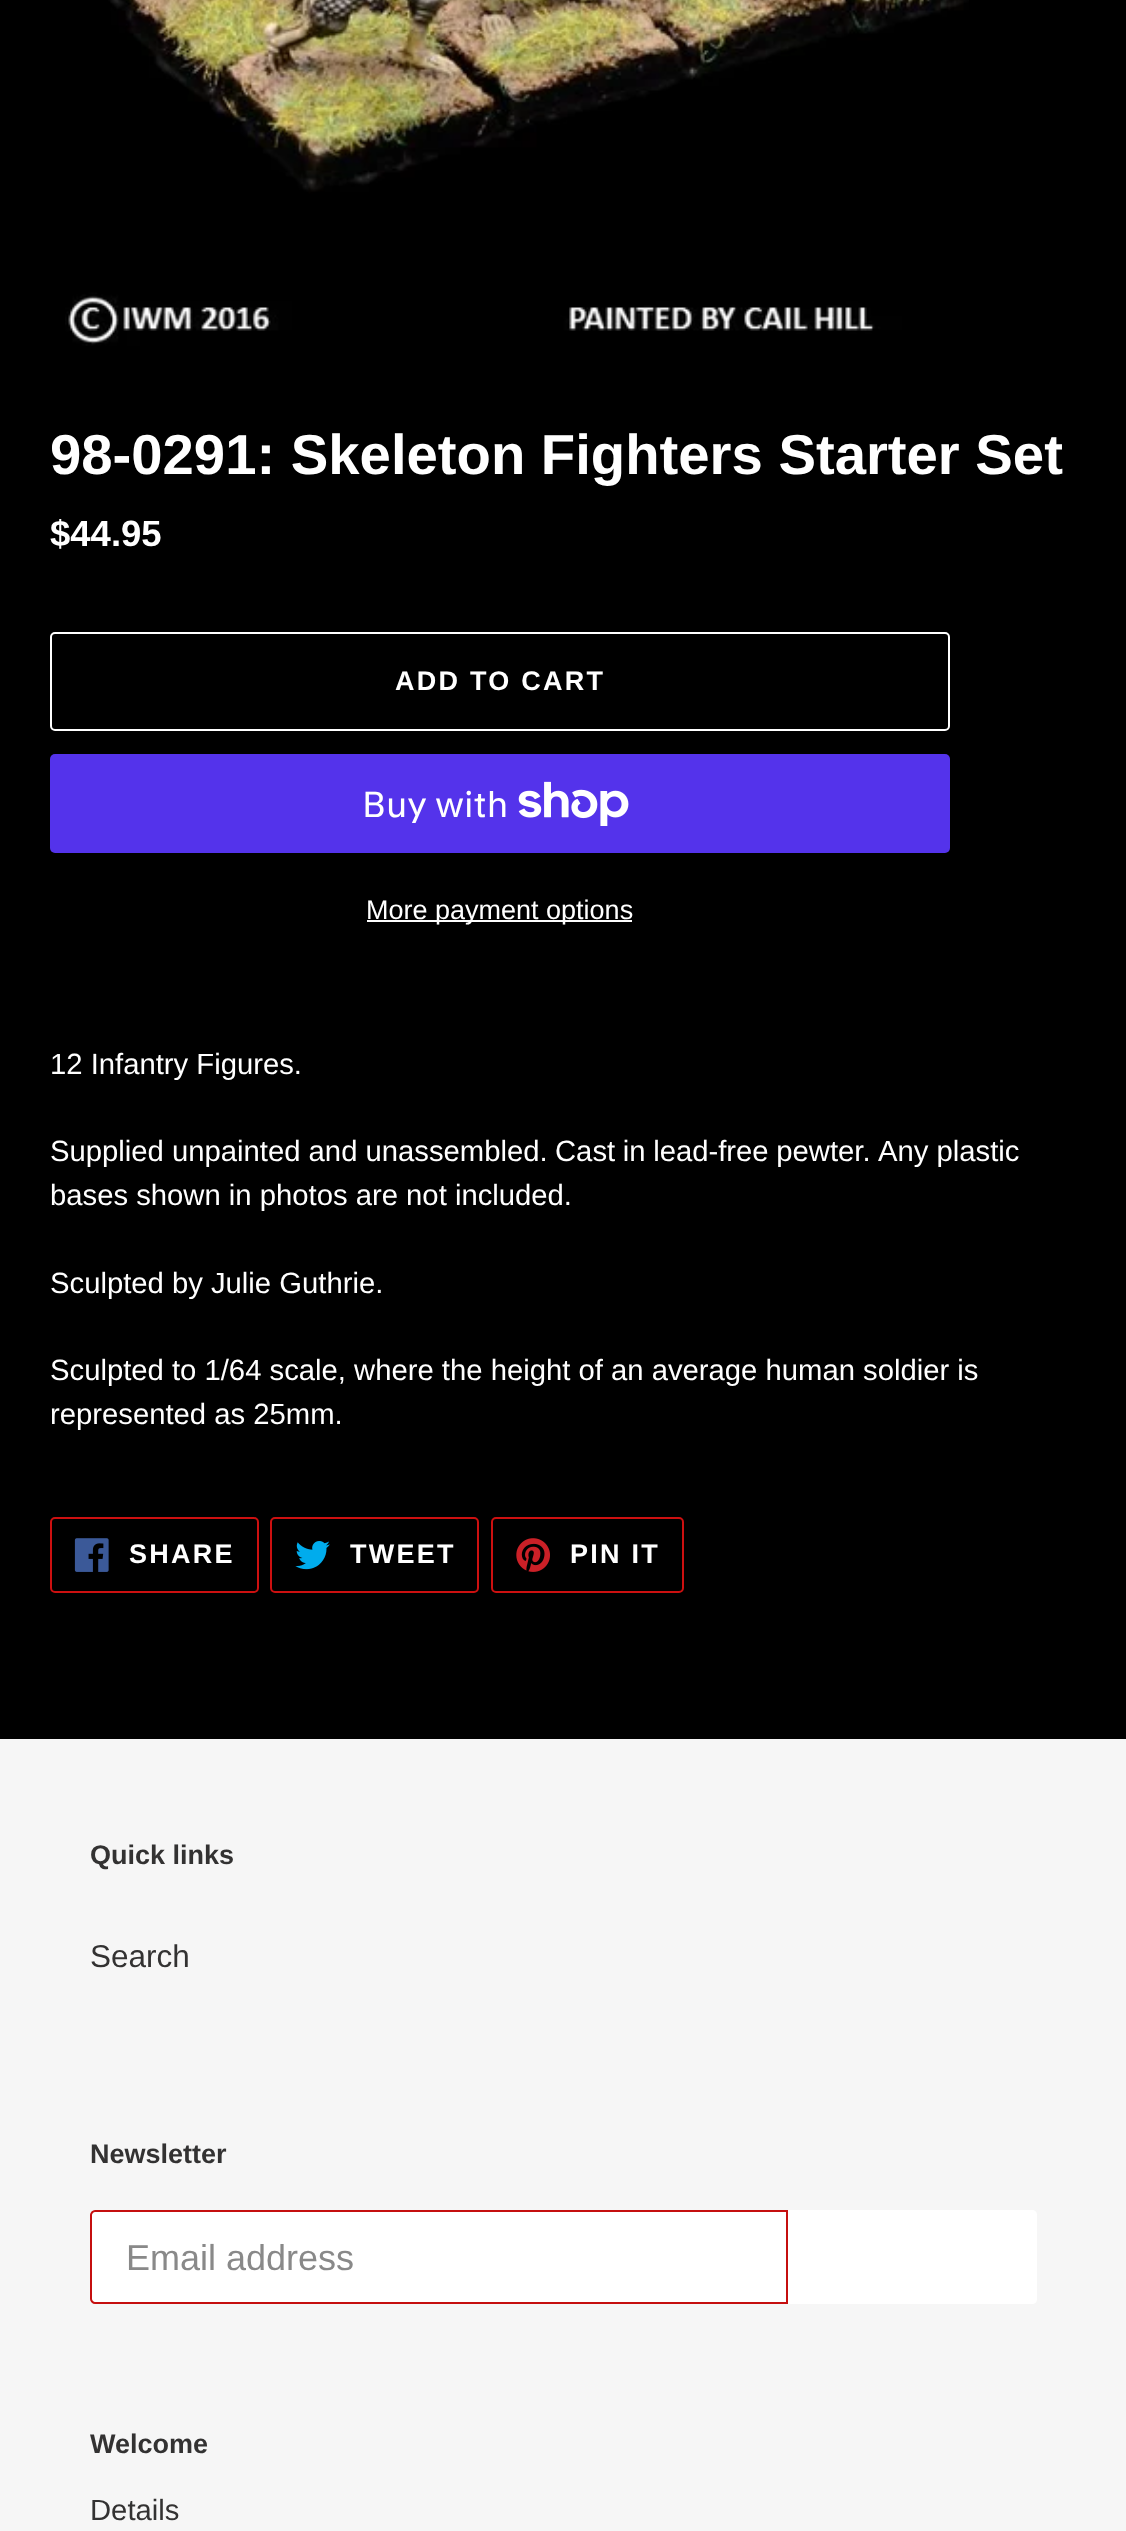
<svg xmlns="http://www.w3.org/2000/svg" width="1126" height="2531">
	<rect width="100%" height="100%" fill="#000000" />
	<image x="65" y="0" width="904" height="346" href="assets/img1.png" />
	<text x="50" y="474" font-family="Liberation Sans" font-size="56.25" font-weight="700" fill="#FFFFFF">98-0291: Skeleton Fighters Starter Set</text>
	<text x="50" y="546" font-family="Liberation Sans" font-size="36.5" font-weight="700" fill="#FFFFFF">$44.95</text>
	<rect x="51" y="633" width="898" height="97" rx="4" fill="none" stroke="#FFFFFF" stroke-width="2" />
	<text x="395" y="690" font-family="Liberation Sans" font-size="27" font-weight="700" letter-spacing="2.25" fill="#FFFFFF">ADD TO CART</text>
	<rect x="50" y="754" width="900" height="99" rx="5" fill="#5433EB" />
	<text x="362" y="817" font-family="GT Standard" font-size="36" fill="#FFFFFF">Buy with</text>
	<image x="518" y="781" width="111" height="45" href="assets/img2.png" />
	<rect x="367" y="920" width="265" height="2" fill="#FFFFFF" />
	<text x="366" y="919" font-family="Liberation Sans" font-size="27" fill="#FFFFFF">More payment options</text>
	<g font-family="Liberation Sans" font-size="29.25" fill="#FFFFFF">
		<text x="50" y="1074">12 Infantry Figures.</text>
		<text x="50" y="1161">Supplied unpainted and unassembled.</text>
		<text x="555" y="1161" word-spacing="-0.5">Cast in lead-free pewter.</text>
		<text x="878" y="1161">Any plastic</text>
		<text x="50" y="1205">bases shown in photos are not included.</text>
		<text x="50" y="1293">Sculpted by Julie Guthrie.</text>
		<text x="50" y="1380">Sculpted to 1/64 scale, where the height of an average human soldier is</text>
		<text x="50" y="1424">represented as 25mm.</text>
	</g>
	<rect x="51" y="1518" width="207" height="74" rx="4" fill="none" stroke="#CC1010" stroke-width="2" />
	<image x="74" y="1538" width="35" height="34" href="assets/img3.png" />
	<text x="129" y="1563" font-family="Liberation Sans" font-size="27" font-weight="700" letter-spacing="2.25" fill="#FFFFFF">SHARE</text>
	<rect x="271" y="1518" width="207" height="74" rx="4" fill="none" stroke="#CC1010" stroke-width="2" />
	<image x="295" y="1541" width="35" height="29" href="assets/img4.png" />
	<text x="350" y="1563" font-family="Liberation Sans" font-size="27" font-weight="700" letter-spacing="2.25" fill="#FFFFFF">TWEET</text>
	<rect x="492" y="1518" width="191" height="74" rx="4" fill="none" stroke="#CC1010" stroke-width="2" />
	<image x="516" y="1538" width="34" height="34" href="assets/img5.png" />
	<text x="570" y="1563" font-family="Liberation Sans" font-size="27" font-weight="700" letter-spacing="2.25" fill="#FFFFFF">PIN IT</text>
	<rect x="0" y="1739" width="1126" height="792" fill="#F6F6F6" />
	<text x="90" y="1864" font-family="Liberation Sans" font-size="27" font-weight="700" fill="#333232">Quick links</text>
	<text x="90" y="1967" font-family="Liberation Sans" font-size="31.5" fill="#333232">Search</text>
	<text x="90" y="2163" font-family="Liberation Sans" font-size="27" font-weight="700" fill="#333232">Newsletter</text>
	<path d="M95 2211H787V2303H95C93 2303 91 2301 91 2299V2215C91 2213 93 2211 95 2211Z" fill="#FFFFFF" stroke="#C50F0F" stroke-width="2" />
	<text x="126" y="2270" font-family="Liberation Sans" font-size="36" fill="#898989">Email address</text>
	<path d="M788 2210H1032C1035 2210 1037 2212 1037 2215V2299C1037 2302 1035 2304 1032 2304H788Z" fill="#FFFFFF" />
	<text x="90" y="2453" font-family="Liberation Sans" font-size="27" font-weight="700" fill="#333232">Welcome</text>
	<text x="90" y="2520" font-family="Liberation Sans" font-size="29.25" fill="#333232">Details</text>
</svg>
